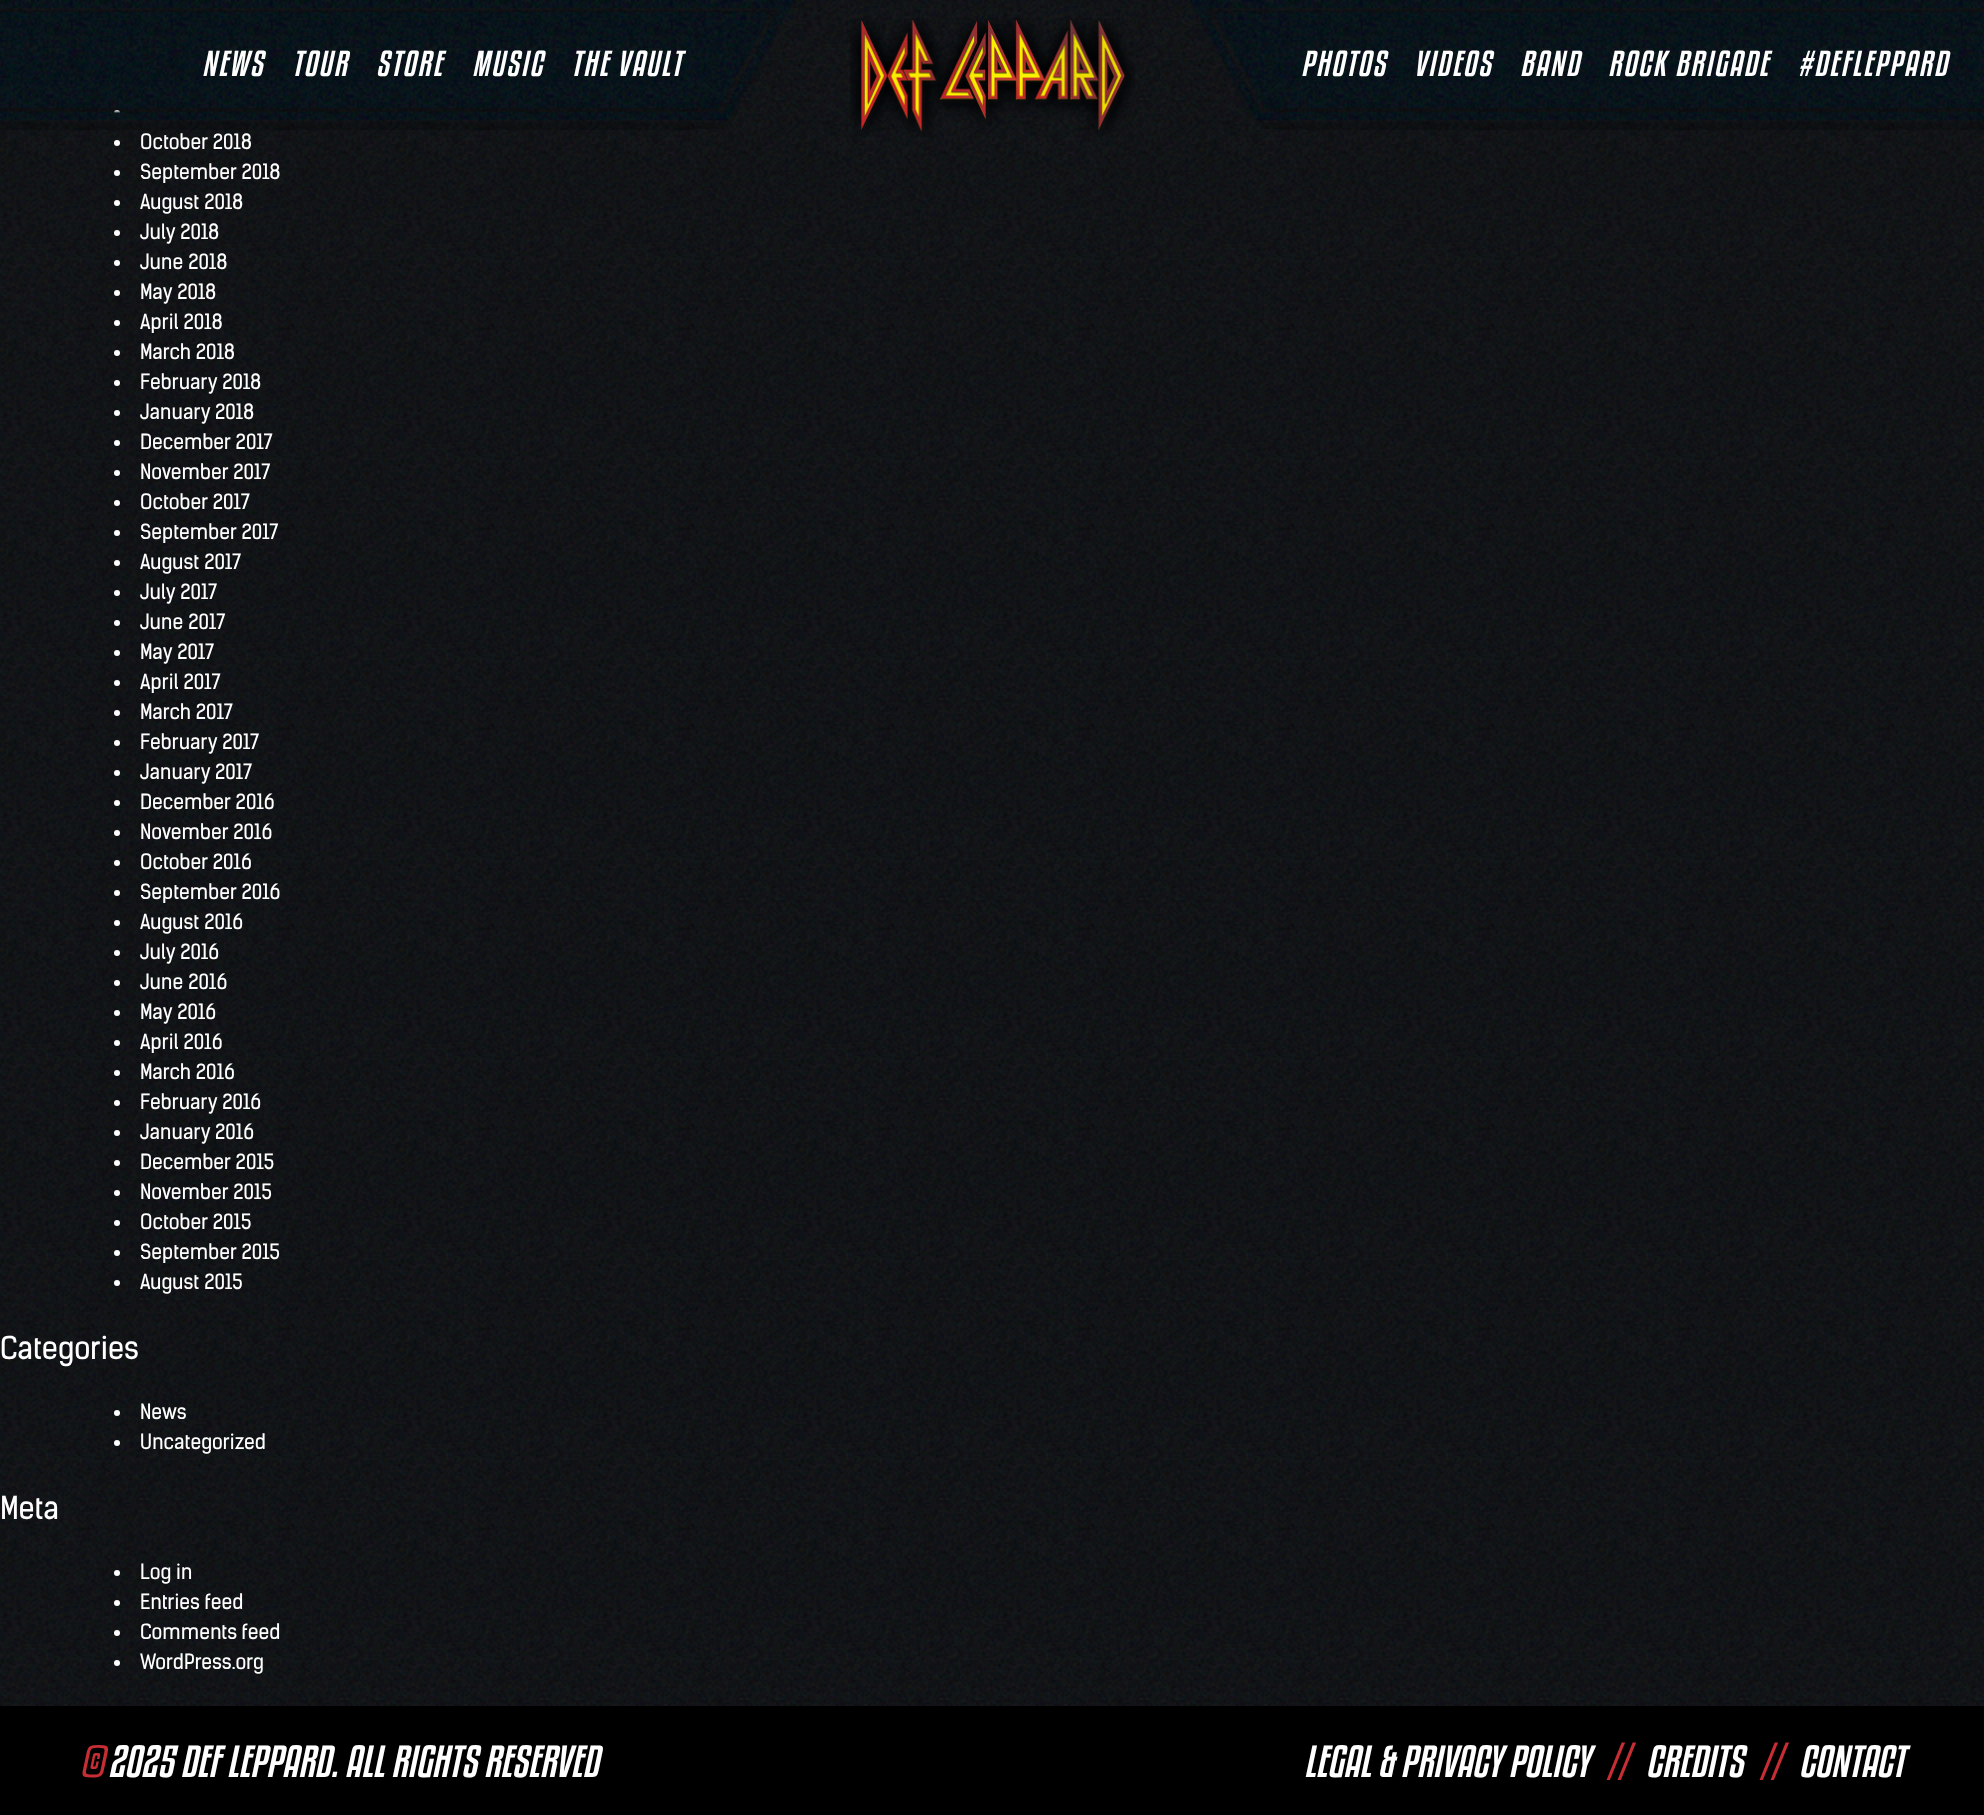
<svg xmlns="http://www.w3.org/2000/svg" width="1984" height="1815">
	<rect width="100%" height="100%" fill="#FFFFFF" />
	<image x="0" y="0" width="1984" height="1706" href="assets/img1.png" />
	<image x="850" y="18" width="285" height="119" href="assets/img2.png" />
	<image x="693" y="0" width="101" height="129" href="assets/img3.png" />
	<circle cx="117" cy="113" r="3" fill="#FFFFFF" />
	<image x="0" y="0" width="694" height="130" href="assets/img4.png" />
	<g font-family="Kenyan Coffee" font-size="32" font-style="italic" letter-spacing="2" fill="#FFFFFF">
		<text x="202" y="76">NEWS</text>
		<text x="292" y="76">TOUR</text>
		<text x="376" y="76">STORE</text>
		<text x="472" y="76">MUSIC</text>
		<text x="571" y="76">THE VAULT</text>
	</g>
	<image x="1190" y="0" width="101" height="129" href="assets/img5.png" />
	<image x="1290" y="0" width="694" height="130" href="assets/img6.png" />
	<g font-family="Kenyan Coffee" font-size="32" font-style="italic" letter-spacing="2" fill="#FFFFFF">
		<text x="1301" y="76">PHOTOS</text>
		<text x="1414" y="76">VIDEOS</text>
		<text x="1520" y="76">BAND</text>
		<text x="1608" y="76">ROCK BRIGADE</text>
		<text x="1798" y="76">#DEFLEPPARD</text>
	</g>
	<circle cx="117" cy="143" r="3" fill="#FFFFFF" />
	<text x="140" y="149" font-family="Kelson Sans" font-size="20" fill="#FFFFFF">October 2018</text>
	<circle cx="117" cy="173" r="3" fill="#FFFFFF" />
	<text x="140" y="179" font-family="Kelson Sans" font-size="20" fill="#FFFFFF">September 2018</text>
	<circle cx="117" cy="203" r="3" fill="#FFFFFF" />
	<text x="140" y="209" font-family="Kelson Sans" font-size="20" fill="#FFFFFF">August 2018</text>
	<circle cx="117" cy="233" r="3" fill="#FFFFFF" />
	<text x="140" y="239" font-family="Kelson Sans" font-size="20" fill="#FFFFFF">July 2018</text>
	<circle cx="117" cy="263" r="3" fill="#FFFFFF" />
	<text x="140" y="269" font-family="Kelson Sans" font-size="20" fill="#FFFFFF">June 2018</text>
	<circle cx="117" cy="293" r="3" fill="#FFFFFF" />
	<text x="140" y="299" font-family="Kelson Sans" font-size="20" fill="#FFFFFF">May 2018</text>
	<circle cx="117" cy="323" r="3" fill="#FFFFFF" />
	<text x="140" y="329" font-family="Kelson Sans" font-size="20" fill="#FFFFFF">April 2018</text>
	<circle cx="117" cy="353" r="3" fill="#FFFFFF" />
	<text x="140" y="359" font-family="Kelson Sans" font-size="20" fill="#FFFFFF">March 2018</text>
	<circle cx="117" cy="383" r="3" fill="#FFFFFF" />
	<text x="140" y="389" font-family="Kelson Sans" font-size="20" fill="#FFFFFF">February 2018</text>
	<circle cx="117" cy="413" r="3" fill="#FFFFFF" />
	<text x="140" y="419" font-family="Kelson Sans" font-size="20" fill="#FFFFFF">January 2018</text>
	<circle cx="117" cy="443" r="3" fill="#FFFFFF" />
	<text x="140" y="449" font-family="Kelson Sans" font-size="20" fill="#FFFFFF">December 2017</text>
	<circle cx="117" cy="473" r="3" fill="#FFFFFF" />
	<text x="140" y="479" font-family="Kelson Sans" font-size="20" fill="#FFFFFF">November 2017</text>
	<circle cx="117" cy="503" r="3" fill="#FFFFFF" />
	<text x="140" y="509" font-family="Kelson Sans" font-size="20" fill="#FFFFFF">October 2017</text>
	<circle cx="117" cy="533" r="3" fill="#FFFFFF" />
	<text x="140" y="539" font-family="Kelson Sans" font-size="20" fill="#FFFFFF">September 2017</text>
	<circle cx="117" cy="563" r="3" fill="#FFFFFF" />
	<text x="140" y="569" font-family="Kelson Sans" font-size="20" fill="#FFFFFF">August 2017</text>
	<circle cx="117" cy="593" r="3" fill="#FFFFFF" />
	<text x="140" y="599" font-family="Kelson Sans" font-size="20" fill="#FFFFFF">July 2017</text>
	<circle cx="117" cy="623" r="3" fill="#FFFFFF" />
	<text x="140" y="629" font-family="Kelson Sans" font-size="20" fill="#FFFFFF">June 2017</text>
	<circle cx="117" cy="653" r="3" fill="#FFFFFF" />
	<text x="140" y="659" font-family="Kelson Sans" font-size="20" fill="#FFFFFF">May 2017</text>
	<circle cx="117" cy="683" r="3" fill="#FFFFFF" />
	<text x="140" y="689" font-family="Kelson Sans" font-size="20" fill="#FFFFFF">April 2017</text>
	<circle cx="117" cy="713" r="3" fill="#FFFFFF" />
	<text x="140" y="719" font-family="Kelson Sans" font-size="20" fill="#FFFFFF">March 2017</text>
	<circle cx="117" cy="743" r="3" fill="#FFFFFF" />
	<text x="140" y="749" font-family="Kelson Sans" font-size="20" fill="#FFFFFF">February 2017</text>
	<circle cx="117" cy="773" r="3" fill="#FFFFFF" />
	<text x="140" y="779" font-family="Kelson Sans" font-size="20" fill="#FFFFFF">January 2017</text>
	<circle cx="117" cy="803" r="3" fill="#FFFFFF" />
	<text x="140" y="809" font-family="Kelson Sans" font-size="20" fill="#FFFFFF">December 2016</text>
	<circle cx="117" cy="833" r="3" fill="#FFFFFF" />
	<text x="140" y="839" font-family="Kelson Sans" font-size="20" fill="#FFFFFF">November 2016</text>
	<circle cx="117" cy="863" r="3" fill="#FFFFFF" />
	<text x="140" y="869" font-family="Kelson Sans" font-size="20" fill="#FFFFFF">October 2016</text>
	<circle cx="117" cy="893" r="3" fill="#FFFFFF" />
	<text x="140" y="899" font-family="Kelson Sans" font-size="20" fill="#FFFFFF">September 2016</text>
	<circle cx="117" cy="923" r="3" fill="#FFFFFF" />
	<text x="140" y="929" font-family="Kelson Sans" font-size="20" fill="#FFFFFF">August 2016</text>
	<circle cx="117" cy="953" r="3" fill="#FFFFFF" />
	<text x="140" y="959" font-family="Kelson Sans" font-size="20" fill="#FFFFFF">July 2016</text>
	<circle cx="117" cy="983" r="3" fill="#FFFFFF" />
	<text x="140" y="989" font-family="Kelson Sans" font-size="20" fill="#FFFFFF">June 2016</text>
	<circle cx="117" cy="1013" r="3" fill="#FFFFFF" />
	<text x="140" y="1019" font-family="Kelson Sans" font-size="20" fill="#FFFFFF">May 2016</text>
	<circle cx="117" cy="1043" r="3" fill="#FFFFFF" />
	<text x="140" y="1049" font-family="Kelson Sans" font-size="20" fill="#FFFFFF">April 2016</text>
	<circle cx="117" cy="1073" r="3" fill="#FFFFFF" />
	<text x="140" y="1079" font-family="Kelson Sans" font-size="20" fill="#FFFFFF">March 2016</text>
	<circle cx="117" cy="1103" r="3" fill="#FFFFFF" />
	<text x="140" y="1109" font-family="Kelson Sans" font-size="20" fill="#FFFFFF">February 2016</text>
	<circle cx="117" cy="1133" r="3" fill="#FFFFFF" />
	<text x="140" y="1139" font-family="Kelson Sans" font-size="20" fill="#FFFFFF">January 2016</text>
	<circle cx="117" cy="1163" r="3" fill="#FFFFFF" />
	<text x="140" y="1169" font-family="Kelson Sans" font-size="20" fill="#FFFFFF">December 2015</text>
	<circle cx="117" cy="1193" r="3" fill="#FFFFFF" />
	<text x="140" y="1199" font-family="Kelson Sans" font-size="20" fill="#FFFFFF">November 2015</text>
	<circle cx="117" cy="1223" r="3" fill="#FFFFFF" />
	<text x="140" y="1229" font-family="Kelson Sans" font-size="20" fill="#FFFFFF">October 2015</text>
	<circle cx="117" cy="1253" r="3" fill="#FFFFFF" />
	<text x="140" y="1259" font-family="Kelson Sans" font-size="20" fill="#FFFFFF">September 2015</text>
	<circle cx="117" cy="1283" r="3" fill="#FFFFFF" />
	<text x="140" y="1289" font-family="Kelson Sans" font-size="20" fill="#FFFFFF">August 2015</text>
	<text x="0" y="1359" font-family="Kelson Sans" font-size="30" fill="#FFFFFF">Categories</text>
	<circle cx="117" cy="1413" r="3" fill="#FFFFFF" />
	<text x="140" y="1419" font-family="Kelson Sans" font-size="20" fill="#FFFFFF">News</text>
	<circle cx="117" cy="1443" r="3" fill="#FFFFFF" />
	<text x="140" y="1449" font-family="Kelson Sans" font-size="20" fill="#FFFFFF">Uncategorized</text>
	<text x="0" y="1519" font-family="Kelson Sans" font-size="30" fill="#FFFFFF">Meta</text>
	<circle cx="117" cy="1573" r="3" fill="#FFFFFF" />
	<text x="140" y="1579" font-family="Kelson Sans" font-size="20" fill="#FFFFFF">Log in</text>
	<circle cx="117" cy="1603" r="3" fill="#FFFFFF" />
	<text x="140" y="1609" font-family="Kelson Sans" font-size="20" fill="#FFFFFF">Entries feed</text>
	<circle cx="117" cy="1633" r="3" fill="#FFFFFF" />
	<text x="140" y="1639" font-family="Kelson Sans" font-size="20" fill="#FFFFFF">Comments feed</text>
	<circle cx="117" cy="1663" r="3" fill="#FFFFFF" />
	<text x="140" y="1669" font-family="Kelson Sans" font-size="20" fill="#FFFFFF">WordPress.org</text>
	<rect x="0" y="1706" width="1984" height="109" fill="#000000" />
	<text x="80" y="1777" font-family="Kenyan Coffee" font-size="40" font-style="italic" fill="#C72D34">©</text>
	<g font-family="Kenyan Coffee" font-size="40" font-style="italic" fill="#FFFFFF">
		<text x="108" y="1777">2025 DEF LEPPARD. ALL RIGHTS RESERVED</text>
		<text x="1304" y="1777">LEGAL &amp; PRIVACY POLICY</text>
	</g>
	<text x="1607" y="1777" font-family="Kenyan Coffee" font-size="40" font-style="italic" fill="#C72D34">//</text>
	<text x="1646" y="1777" font-family="Kenyan Coffee" font-size="40" font-style="italic" fill="#FFFFFF">CREDITS</text>
	<text x="1760" y="1777" font-family="Kenyan Coffee" font-size="40" font-style="italic" fill="#C72D34">//</text>
	<text x="1799" y="1777" font-family="Kenyan Coffee" font-size="40" font-style="italic" fill="#FFFFFF">CONTACT</text>
</svg>
